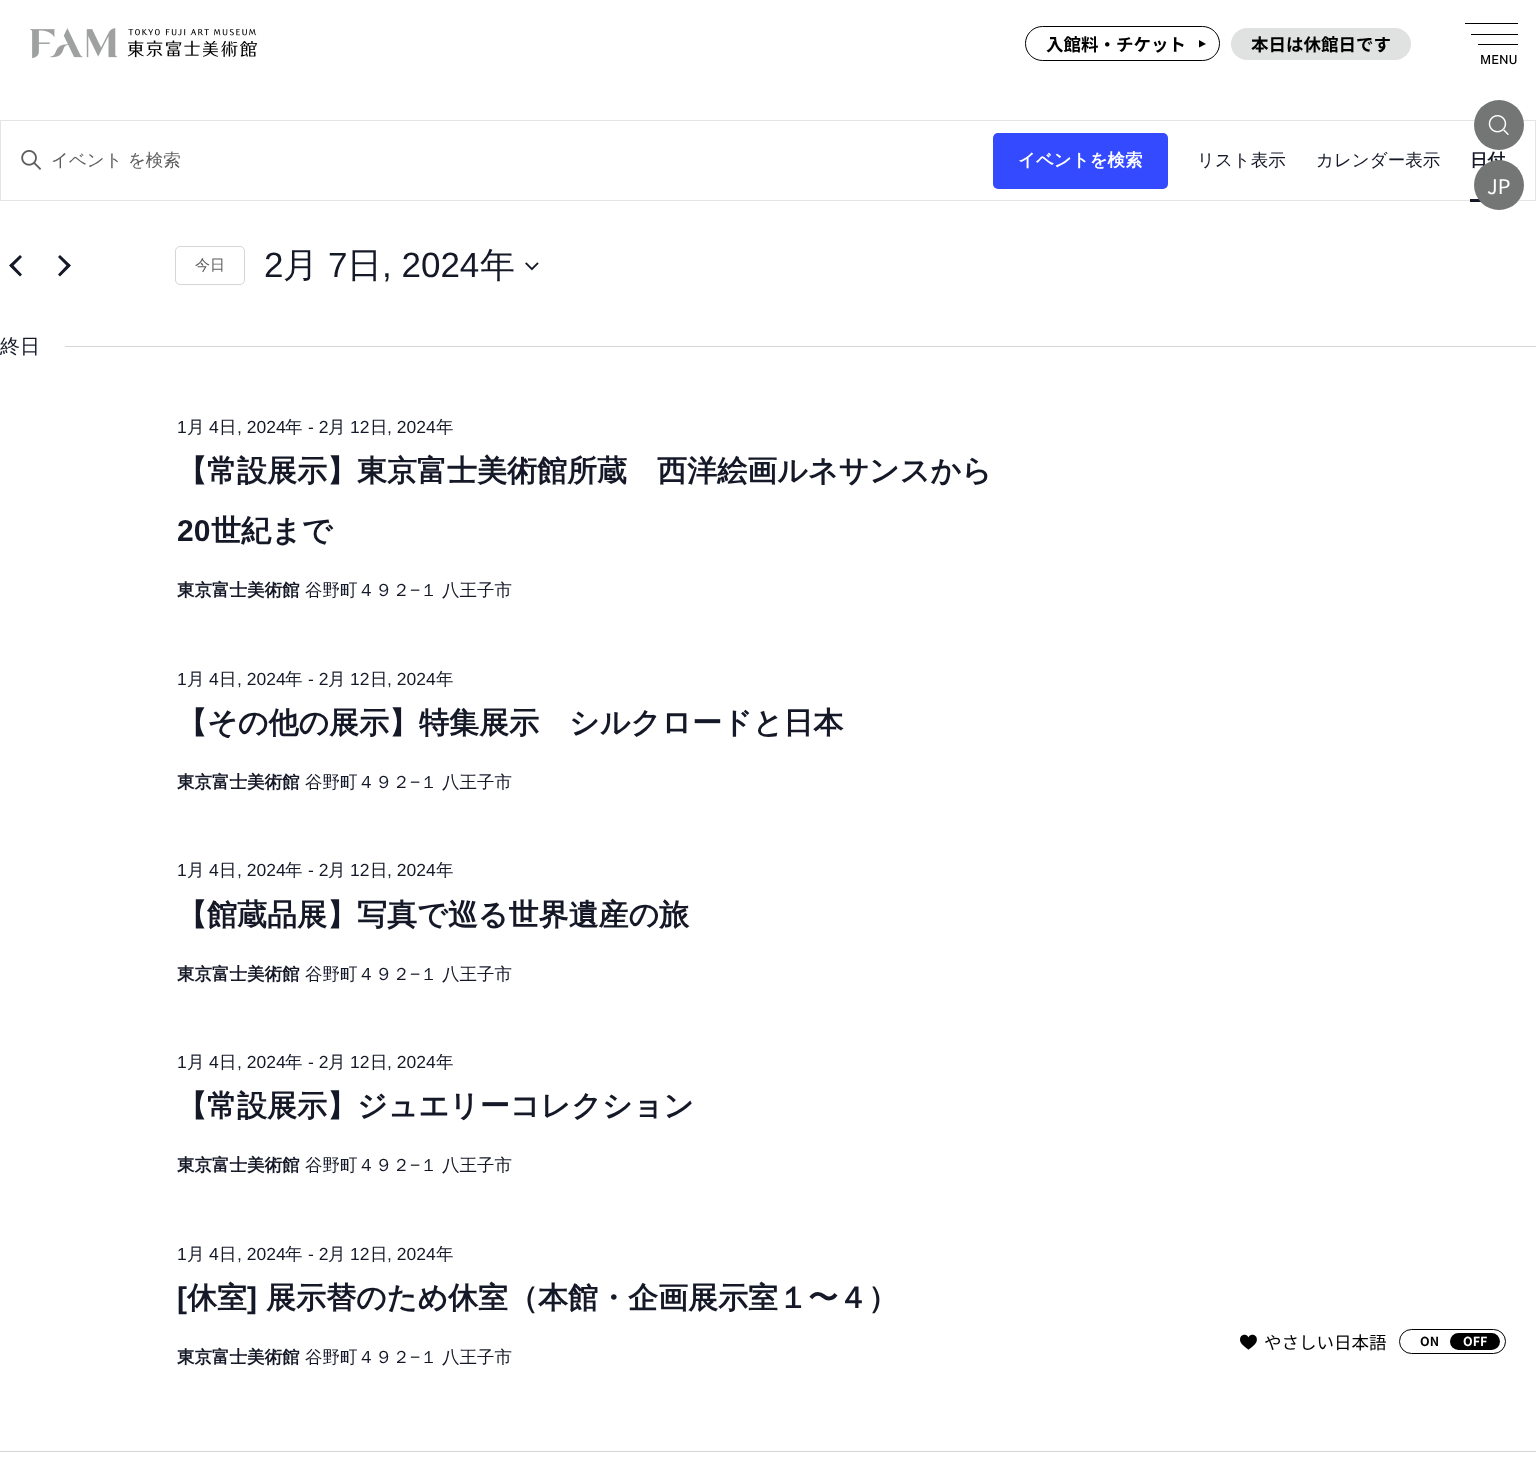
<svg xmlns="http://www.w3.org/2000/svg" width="1536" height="1473">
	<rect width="100%" height="100%" fill="#FFFFFF" />
	<image x="30" y="28" width="88" height="30" href="assets/img1.png" />
	<image x="127" y="29" width="130" height="29" href="assets/img2.png" />
	<rect x="1025.5" y="26.5" width="194" height="34" rx="17" fill="none" stroke="#000000" />
	<text x="1046" y="51" font-family="Noto Sans JP" font-size="17.5" font-weight="700" fill="#000000">入館料・チケット</text>
	<path d="M1199 47.5V40L1206 44Z" fill="#000000" />
	<rect x="1231" y="28" width="180" height="32" rx="16" fill="#E0E1E1" />
	<text x="1251" y="51" font-family="Noto Sans JP" font-size="17.5" font-weight="700" fill="#000000">本日は休館日です</text>
	<rect x="1465" y="23" width="53" height="1" fill="#000000" />
	<rect x="1471" y="34" width="47" height="1" fill="#000000" />
	<rect x="1478" y="44" width="40" height="1" fill="#000000" />
	<text x="1480" y="64" font-family="Public Sans" font-size="12.5" font-weight="500" fill="#000000">MENU</text>
	<rect x="0.5" y="120.5" width="1535" height="80" fill="none" stroke="#E4E4E4" />
	<image x="21" y="150" width="20" height="20" href="assets/img3.png" />
	<text x="51" y="166" font-family="WenQuanYi Zen Hei" font-size="17.5" font-weight="500" fill="#5D5D5D">イベント を検索</text>
	<rect x="993" y="133" width="175" height="56" rx="5" fill="#334AFF" />
	<text x="1018" y="166" font-family="WenQuanYi Zen Hei" font-size="17.5" font-weight="700" fill="#FFFFFF">イベントを検索</text>
	<g font-family="WenQuanYi Zen Hei" font-size="17.5" font-weight="500" fill="#141827">
		<text x="1197" y="166">リスト表示</text>
		<text x="1316" y="166">カレンダー表示</text>
	</g>
	<text x="1470" y="166" font-family="WenQuanYi Zen Hei" font-size="17.5" font-weight="700" fill="#141827">日付</text>
	<rect x="1470" y="199" width="11" height="3" fill="#141827" />
	<path d="M22 274.5L20 276.5L9 265.5L20 255L22 257L13.5 265.5ZM58 257L60 255L71 265.5L60 276.5L58 274.5L66.5 265.5Z" fill="#141827" />
	<rect x="175.5" y="246.5" width="69" height="38" rx="4.5" fill="none" stroke="#D5D5D5" />
	<text x="195" y="270" font-family="WenQuanYi Zen Hei" font-size="15" font-weight="500" fill="#5D5D5D">今日</text>
	<text x="264" y="277" font-family="Liberation Sans" font-size="35" fill="#141827">2</text>
	<text x="283" y="277" font-family="WenQuanYi Zen Hei" font-size="35" font-weight="500" fill="#141827">月</text>
	<text x="328" y="277" font-family="Liberation Sans" font-size="35" fill="#141827">7</text>
	<text x="347" y="277" font-family="WenQuanYi Zen Hei" font-size="35" font-weight="500" fill="#141827">日</text>
	<text x="382" y="277" font-family="Liberation Sans" font-size="35" fill="#141827">, 2024</text>
	<text x="480" y="277" font-family="WenQuanYi Zen Hei" font-size="35" font-weight="500" fill="#141827">年</text>
	<image x="525" y="262" width="14" height="9" href="assets/img4.png" />
	<text x="0" y="353" font-family="WenQuanYi Zen Hei" font-size="20" font-weight="500" fill="#141827">終日</text>
	<rect x="65" y="346" width="1471" height="1" fill="#D5D5D5" />
	<text x="177" y="433" font-family="Liberation Sans" font-size="17.5" fill="#141827">1</text>
	<text x="187" y="433" font-family="WenQuanYi Zen Hei" font-size="17.5" font-weight="500" fill="#141827">月</text>
	<text x="209" y="433" font-family="Liberation Sans" font-size="17.5" fill="#141827">4</text>
	<text x="219" y="433" font-family="WenQuanYi Zen Hei" font-size="17.5" font-weight="500" fill="#141827">日</text>
	<text x="237" y="433" font-family="Liberation Sans" font-size="17.5" fill="#141827">, 2024</text>
	<text x="285" y="433" font-family="WenQuanYi Zen Hei" font-size="17.5" font-weight="500" fill="#141827">年</text>
	<text x="308" y="433" font-family="Liberation Sans" font-size="17.5" fill="#141827">- 2</text>
	<text x="328" y="433" font-family="WenQuanYi Zen Hei" font-size="17.5" font-weight="500" fill="#141827">月</text>
	<text x="350" y="433" font-family="Liberation Sans" font-size="17.5" fill="#141827">12</text>
	<text x="370" y="433" font-family="WenQuanYi Zen Hei" font-size="17.5" font-weight="500" fill="#141827">日</text>
	<text x="387" y="433" font-family="Liberation Sans" font-size="17.5" fill="#141827">, 2024</text>
	<text x="436" y="433" font-family="WenQuanYi Zen Hei" font-size="17.5" font-weight="500" fill="#141827">年</text>
	<text x="177" y="481" font-family="WenQuanYi Zen Hei" font-size="30" font-weight="700" fill="#141827">【常設展示】東京富士美術館所蔵　西洋絵画ルネサンスから</text>
	<text x="177" y="541" font-family="Liberation Sans" font-size="30" font-weight="700" fill="#141827">20</text>
	<text x="211" y="541" font-family="WenQuanYi Zen Hei" font-size="30" font-weight="700" fill="#141827">世紀まで</text>
	<text x="177" y="596" font-family="WenQuanYi Zen Hei" font-size="17.5" font-weight="700" fill="#141827">東京富士美術館</text>
	<text x="305" y="596" font-family="WenQuanYi Zen Hei" font-size="17.5" font-weight="500" fill="#141827">谷野町４９２</text>
	<text x="410" y="596" font-family="Liberation Sans" font-size="17.5" fill="#141827">−</text>
	<g font-family="WenQuanYi Zen Hei" font-size="17.5" font-weight="500" fill="#141827">
		<text x="420" y="596">１</text>
		<text x="442" y="596">八王子市</text>
	</g>
	<text x="177" y="685" font-family="Liberation Sans" font-size="17.5" fill="#141827">1</text>
	<text x="187" y="685" font-family="WenQuanYi Zen Hei" font-size="17.5" font-weight="500" fill="#141827">月</text>
	<text x="209" y="685" font-family="Liberation Sans" font-size="17.5" fill="#141827">4</text>
	<text x="219" y="685" font-family="WenQuanYi Zen Hei" font-size="17.5" font-weight="500" fill="#141827">日</text>
	<text x="237" y="685" font-family="Liberation Sans" font-size="17.5" fill="#141827">, 2024</text>
	<text x="285" y="685" font-family="WenQuanYi Zen Hei" font-size="17.5" font-weight="500" fill="#141827">年</text>
	<text x="308" y="685" font-family="Liberation Sans" font-size="17.5" fill="#141827">- 2</text>
	<text x="328" y="685" font-family="WenQuanYi Zen Hei" font-size="17.5" font-weight="500" fill="#141827">月</text>
	<text x="350" y="685" font-family="Liberation Sans" font-size="17.5" fill="#141827">12</text>
	<text x="370" y="685" font-family="WenQuanYi Zen Hei" font-size="17.5" font-weight="500" fill="#141827">日</text>
	<text x="387" y="685" font-family="Liberation Sans" font-size="17.5" fill="#141827">, 2024</text>
	<text x="436" y="685" font-family="WenQuanYi Zen Hei" font-size="17.5" font-weight="500" fill="#141827">年</text>
	<text x="177" y="733" font-family="WenQuanYi Zen Hei" font-size="30" font-weight="700" fill="#141827">【その他の展示】特集展示　シルクロードと日本</text>
	<text x="177" y="788" font-family="WenQuanYi Zen Hei" font-size="17.5" font-weight="700" fill="#141827">東京富士美術館</text>
	<text x="305" y="788" font-family="WenQuanYi Zen Hei" font-size="17.5" font-weight="500" fill="#141827">谷野町４９２</text>
	<text x="410" y="788" font-family="Liberation Sans" font-size="17.5" fill="#141827">−</text>
	<g font-family="WenQuanYi Zen Hei" font-size="17.5" font-weight="500" fill="#141827">
		<text x="420" y="788">１</text>
		<text x="442" y="788">八王子市</text>
	</g>
	<text x="177" y="876" font-family="Liberation Sans" font-size="17.5" fill="#141827">1</text>
	<text x="187" y="876" font-family="WenQuanYi Zen Hei" font-size="17.5" font-weight="500" fill="#141827">月</text>
	<text x="209" y="876" font-family="Liberation Sans" font-size="17.5" fill="#141827">4</text>
	<text x="219" y="876" font-family="WenQuanYi Zen Hei" font-size="17.5" font-weight="500" fill="#141827">日</text>
	<text x="237" y="876" font-family="Liberation Sans" font-size="17.5" fill="#141827">, 2024</text>
	<text x="285" y="876" font-family="WenQuanYi Zen Hei" font-size="17.5" font-weight="500" fill="#141827">年</text>
	<text x="308" y="876" font-family="Liberation Sans" font-size="17.5" fill="#141827">- 2</text>
	<text x="328" y="876" font-family="WenQuanYi Zen Hei" font-size="17.5" font-weight="500" fill="#141827">月</text>
	<text x="350" y="876" font-family="Liberation Sans" font-size="17.5" fill="#141827">12</text>
	<text x="370" y="876" font-family="WenQuanYi Zen Hei" font-size="17.5" font-weight="500" fill="#141827">日</text>
	<text x="387" y="876" font-family="Liberation Sans" font-size="17.5" fill="#141827">, 2024</text>
	<text x="436" y="876" font-family="WenQuanYi Zen Hei" font-size="17.5" font-weight="500" fill="#141827">年</text>
	<text x="177" y="925" font-family="WenQuanYi Zen Hei" font-size="30" font-weight="700" fill="#141827">【館蔵品展】写真で巡る世界遺産の旅</text>
	<text x="177" y="980" font-family="WenQuanYi Zen Hei" font-size="17.5" font-weight="700" fill="#141827">東京富士美術館</text>
	<text x="305" y="980" font-family="WenQuanYi Zen Hei" font-size="17.5" font-weight="500" fill="#141827">谷野町４９２</text>
	<text x="410" y="980" font-family="Liberation Sans" font-size="17.5" fill="#141827">−</text>
	<g font-family="WenQuanYi Zen Hei" font-size="17.5" font-weight="500" fill="#141827">
		<text x="420" y="980">１</text>
		<text x="442" y="980">八王子市</text>
	</g>
	<text x="177" y="1068" font-family="Liberation Sans" font-size="17.5" fill="#141827">1</text>
	<text x="187" y="1068" font-family="WenQuanYi Zen Hei" font-size="17.5" font-weight="500" fill="#141827">月</text>
	<text x="209" y="1068" font-family="Liberation Sans" font-size="17.5" fill="#141827">4</text>
	<text x="219" y="1068" font-family="WenQuanYi Zen Hei" font-size="17.5" font-weight="500" fill="#141827">日</text>
	<text x="237" y="1068" font-family="Liberation Sans" font-size="17.5" fill="#141827">, 2024</text>
	<text x="285" y="1068" font-family="WenQuanYi Zen Hei" font-size="17.5" font-weight="500" fill="#141827">年</text>
	<text x="308" y="1068" font-family="Liberation Sans" font-size="17.5" fill="#141827">- 2</text>
	<text x="328" y="1068" font-family="WenQuanYi Zen Hei" font-size="17.5" font-weight="500" fill="#141827">月</text>
	<text x="350" y="1068" font-family="Liberation Sans" font-size="17.5" fill="#141827">12</text>
	<text x="370" y="1068" font-family="WenQuanYi Zen Hei" font-size="17.5" font-weight="500" fill="#141827">日</text>
	<text x="387" y="1068" font-family="Liberation Sans" font-size="17.5" fill="#141827">, 2024</text>
	<text x="436" y="1068" font-family="WenQuanYi Zen Hei" font-size="17.5" font-weight="500" fill="#141827">年</text>
	<text x="177" y="1116" font-family="WenQuanYi Zen Hei" font-size="30" font-weight="700" fill="#141827">【常設展示】ジュエリーコレクション</text>
	<text x="177" y="1171" font-family="WenQuanYi Zen Hei" font-size="17.5" font-weight="700" fill="#141827">東京富士美術館</text>
	<text x="305" y="1171" font-family="WenQuanYi Zen Hei" font-size="17.5" font-weight="500" fill="#141827">谷野町４９２</text>
	<text x="410" y="1171" font-family="Liberation Sans" font-size="17.5" fill="#141827">−</text>
	<g font-family="WenQuanYi Zen Hei" font-size="17.5" font-weight="500" fill="#141827">
		<text x="420" y="1171">１</text>
		<text x="442" y="1171">八王子市</text>
	</g>
	<text x="177" y="1260" font-family="Liberation Sans" font-size="17.5" fill="#141827">1</text>
	<text x="187" y="1260" font-family="WenQuanYi Zen Hei" font-size="17.5" font-weight="500" fill="#141827">月</text>
	<text x="209" y="1260" font-family="Liberation Sans" font-size="17.5" fill="#141827">4</text>
	<text x="219" y="1260" font-family="WenQuanYi Zen Hei" font-size="17.5" font-weight="500" fill="#141827">日</text>
	<text x="237" y="1260" font-family="Liberation Sans" font-size="17.5" fill="#141827">, 2024</text>
	<text x="285" y="1260" font-family="WenQuanYi Zen Hei" font-size="17.5" font-weight="500" fill="#141827">年</text>
	<text x="308" y="1260" font-family="Liberation Sans" font-size="17.5" fill="#141827">- 2</text>
	<text x="328" y="1260" font-family="WenQuanYi Zen Hei" font-size="17.5" font-weight="500" fill="#141827">月</text>
	<text x="350" y="1260" font-family="Liberation Sans" font-size="17.5" fill="#141827">12</text>
	<text x="370" y="1260" font-family="WenQuanYi Zen Hei" font-size="17.5" font-weight="500" fill="#141827">日</text>
	<text x="387" y="1260" font-family="Liberation Sans" font-size="17.5" fill="#141827">, 2024</text>
	<text x="436" y="1260" font-family="WenQuanYi Zen Hei" font-size="17.5" font-weight="500" fill="#141827">年</text>
	<text x="177" y="1308" font-family="Liberation Sans" font-size="30" font-weight="700" fill="#141827">[</text>
	<text x="187" y="1308" font-family="WenQuanYi Zen Hei" font-size="30" font-weight="700" fill="#141827">休室</text>
	<text x="247" y="1308" font-family="Liberation Sans" font-size="30" font-weight="700" fill="#141827">]</text>
	<text x="266" y="1308" font-family="WenQuanYi Zen Hei" font-size="30" font-weight="700" fill="#141827">展示替のため休室（本館・企画展示室１〜４）</text>
	<text x="177" y="1363" font-family="WenQuanYi Zen Hei" font-size="17.5" font-weight="700" fill="#141827">東京富士美術館</text>
	<text x="305" y="1363" font-family="WenQuanYi Zen Hei" font-size="17.5" font-weight="500" fill="#141827">谷野町４９２</text>
	<text x="410" y="1363" font-family="Liberation Sans" font-size="17.5" fill="#141827">−</text>
	<g font-family="WenQuanYi Zen Hei" font-size="17.5" font-weight="500" fill="#141827">
		<text x="420" y="1363">１</text>
		<text x="442" y="1363">八王子市</text>
	</g>
	<rect x="0" y="1451" width="1536" height="1" fill="#D5D5D5" />
	<circle cx="1499" cy="125" r="25" fill="#747575" />
	<image x="1488" y="115" width="21" height="20" href="assets/img5.png" />
	<circle cx="1499" cy="185" r="25" fill="#747575" />
	<text x="1487" y="194" font-family="Noto Sans JP" font-size="20" fill="#FFFFFF">JP</text>
	<image x="1240" y="1334" width="17" height="16" href="assets/img6.png" />
	<text x="1264" y="1349" font-family="Noto Sans JP" font-size="17.5" fill="#000000">やさしい日本語</text>
	<rect x="1399.5" y="1329.5" width="106" height="24" rx="12" fill="none" stroke="#000000" />
	<text x="1420" y="1346" font-family="Noto Sans JP" font-size="12.5" font-weight="700" fill="#000000">ON</text>
	<rect x="1450" y="1333" width="50" height="17" rx="8.5" fill="#000000" />
	<text x="1463" y="1346" font-family="Noto Sans JP" font-size="12.5" font-weight="700" fill="#FFFFFF">OFF</text>
</svg>
